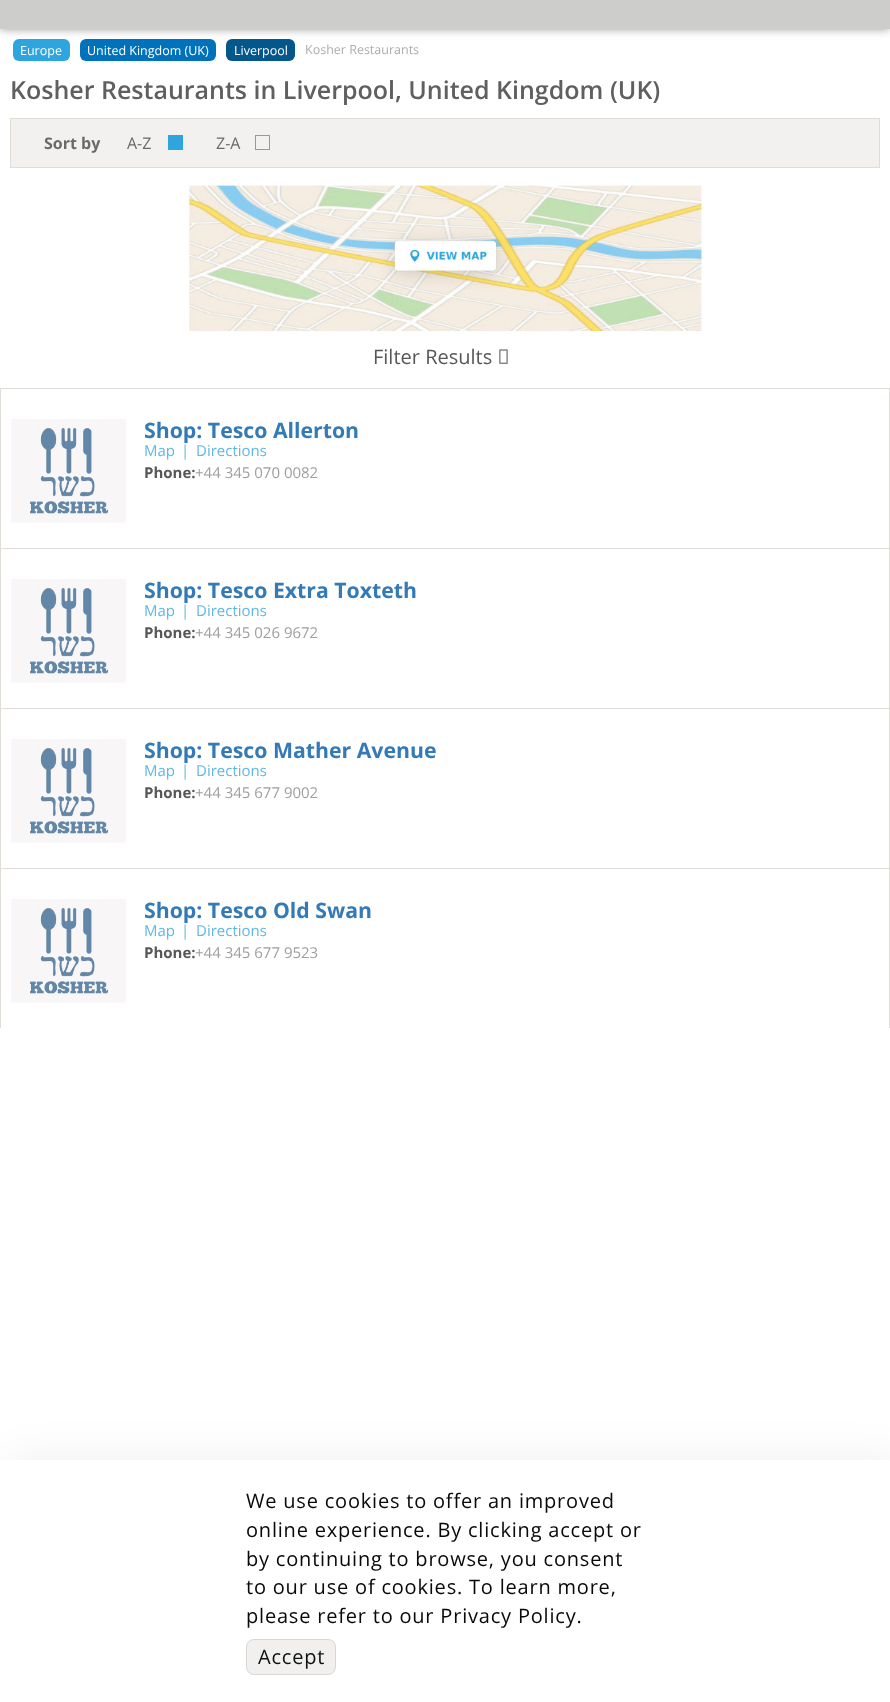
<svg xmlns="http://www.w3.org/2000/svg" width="890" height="1702">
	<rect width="100%" height="100%" fill="#FFFFFF" />
	<rect x="13" y="39" width="57" height="22" rx="6" fill="#2EA5DE" />
	<rect x="80" y="39" width="136" height="22" rx="6" fill="#0072BC" />
	<rect x="226" y="39" width="69" height="22" rx="6" fill="#04578B" />
	<rect x="0" y="-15" width="890" height="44" fill="#000000" fill-opacity="0.4" filter="blur(5px)" />
	<rect x="0" y="0" width="890" height="29" fill="#CDCDCC" />
	<g font-family="Open Sans" font-size="12.5" fill="#FFFFFF">
		<text x="20" y="55">Europe</text>
		<text x="87" y="55">United Kingdom (UK)</text>
		<text x="234" y="55">Liverpool</text>
	</g>
	<text x="305" y="54" font-family="Open Sans" font-size="12.5" fill="#AEADAE">Kosher Restaurants</text>
	<text x="10" y="99" font-family="Open Sans" font-size="25" font-weight="600" fill="#5F5F5F">Kosher Restaurants in Liverpool, United Kingdom (UK)</text>
	<rect x="10.5" y="118.5" width="869" height="49" fill="#F2F1F0" stroke="#E0DDD9" />
	<text x="44" y="149" font-family="Open Sans" font-size="16" font-weight="700" fill="#6B6A6B">Sort by</text>
	<text x="127" y="149" font-family="Open Sans" font-size="16" fill="#6B6A6B">A-Z</text>
	<rect x="168" y="135" width="15" height="15" fill="#2EA5DD" />
	<text x="216" y="149" font-family="Open Sans" font-size="16" fill="#6B6A6B">Z-A</text>
	<rect x="255.5" y="135.5" width="14" height="14" fill="none" stroke="#989999" />
	<image x="189" y="185" width="513" height="147" href="assets/img1.png" />
	<text x="373" y="364" font-family="Open Sans" font-size="20" fill="#585758">Filter Results</text>
	<image x="499" y="349" width="9" height="15" href="assets/img2.png" />
	<rect x="0" y="388" width="890" height="1" fill="#E0DDD9" />
	<rect x="889" y="388" width="1" height="640" fill="#E0DDD9" />
	<rect x="0" y="388" width="1" height="640" fill="#E0DDD9" />
	<rect x="1" y="548" width="888" height="1" fill="#E0DDD9" />
	<image x="11" y="419" width="115" height="104" href="assets/img3.png" />
	<text x="144" y="438" font-family="Open Sans" font-size="21.25" font-weight="700" fill="#337AB7">Shop: Tesco Allerton</text>
	<g font-family="Open Sans" font-size="15" fill="#61B7E3">
		<text x="144" y="456">Map</text>
		<text x="181" y="456">|</text>
		<text x="196" y="456">Directions</text>
	</g>
	<text x="144" y="478" font-family="Open Sans" font-size="15" font-weight="700" fill="#585758">Phone:</text>
	<text x="195" y="478" font-family="Open Sans" font-size="15" fill="#9E9E9E">+44 345 070 0082</text>
	<rect x="1" y="708" width="888" height="1" fill="#E0DDD9" />
	<image x="11" y="579" width="115" height="104" href="assets/img3.png" />
	<text x="144" y="598" font-family="Open Sans" font-size="21.25" font-weight="700" fill="#337AB7">Shop: Tesco Extra Toxteth</text>
	<g font-family="Open Sans" font-size="15" fill="#61B7E3">
		<text x="144" y="616">Map</text>
		<text x="181" y="616">|</text>
		<text x="196" y="616">Directions</text>
	</g>
	<text x="144" y="638" font-family="Open Sans" font-size="15" font-weight="700" fill="#585758">Phone:</text>
	<text x="195" y="638" font-family="Open Sans" font-size="15" fill="#9E9E9E">+44 345 026 9672</text>
	<rect x="1" y="868" width="888" height="1" fill="#E0DDD9" />
	<image x="11" y="739" width="115" height="104" href="assets/img3.png" />
	<text x="144" y="758" font-family="Open Sans" font-size="21.25" font-weight="700" fill="#337AB7">Shop: Tesco Mather Avenue</text>
	<g font-family="Open Sans" font-size="15" fill="#61B7E3">
		<text x="144" y="776">Map</text>
		<text x="181" y="776">|</text>
		<text x="196" y="776">Directions</text>
	</g>
	<text x="144" y="798" font-family="Open Sans" font-size="15" font-weight="700" fill="#585758">Phone:</text>
	<text x="195" y="798" font-family="Open Sans" font-size="15" fill="#9E9E9E">+44 345 677 9002</text>
	<image x="11" y="899" width="115" height="104" href="assets/img3.png" />
	<text x="144" y="918" font-family="Open Sans" font-size="21.25" font-weight="700" fill="#337AB7">Shop: Tesco Old Swan</text>
	<g font-family="Open Sans" font-size="15" fill="#61B7E3">
		<text x="144" y="936">Map</text>
		<text x="181" y="936">|</text>
		<text x="196" y="936">Directions</text>
	</g>
	<text x="144" y="958" font-family="Open Sans" font-size="15" font-weight="700" fill="#585758">Phone:</text>
	<text x="195" y="958" font-family="Open Sans" font-size="15" fill="#9E9E9E">+44 345 677 9523</text>
	<rect x="9" y="1458" width="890" height="242" fill="#000000" fill-opacity="0.06" filter="blur(21px)" />
	<rect x="0" y="1460" width="890" height="242" fill="#FFFFFF" />
	<g font-family="Open Sans" font-size="20" letter-spacing="0.8" fill="#07090A">
		<text x="246" y="1508">We use cookies to offer an improved</text>
		<text x="246" y="1537">online experience. By clicking accept or</text>
		<text x="246" y="1566">by continuing to browse, you consent</text>
		<text x="246" y="1594">to our use of cookies. To learn more,</text>
		<text x="246" y="1623">please refer to our Privacy Policy.</text>
	</g>
	<rect x="246" y="1639" width="90" height="36" rx="8" fill="#F1F0EF" />
	<rect x="246.5" y="1639.5" width="89" height="35" rx="7.5" fill="none" stroke="#000000" stroke-opacity="0.1" />
	<text x="258" y="1664" font-family="Open Sans" font-size="20" letter-spacing="0.8" fill="#0E1213">Accept</text>
</svg>
